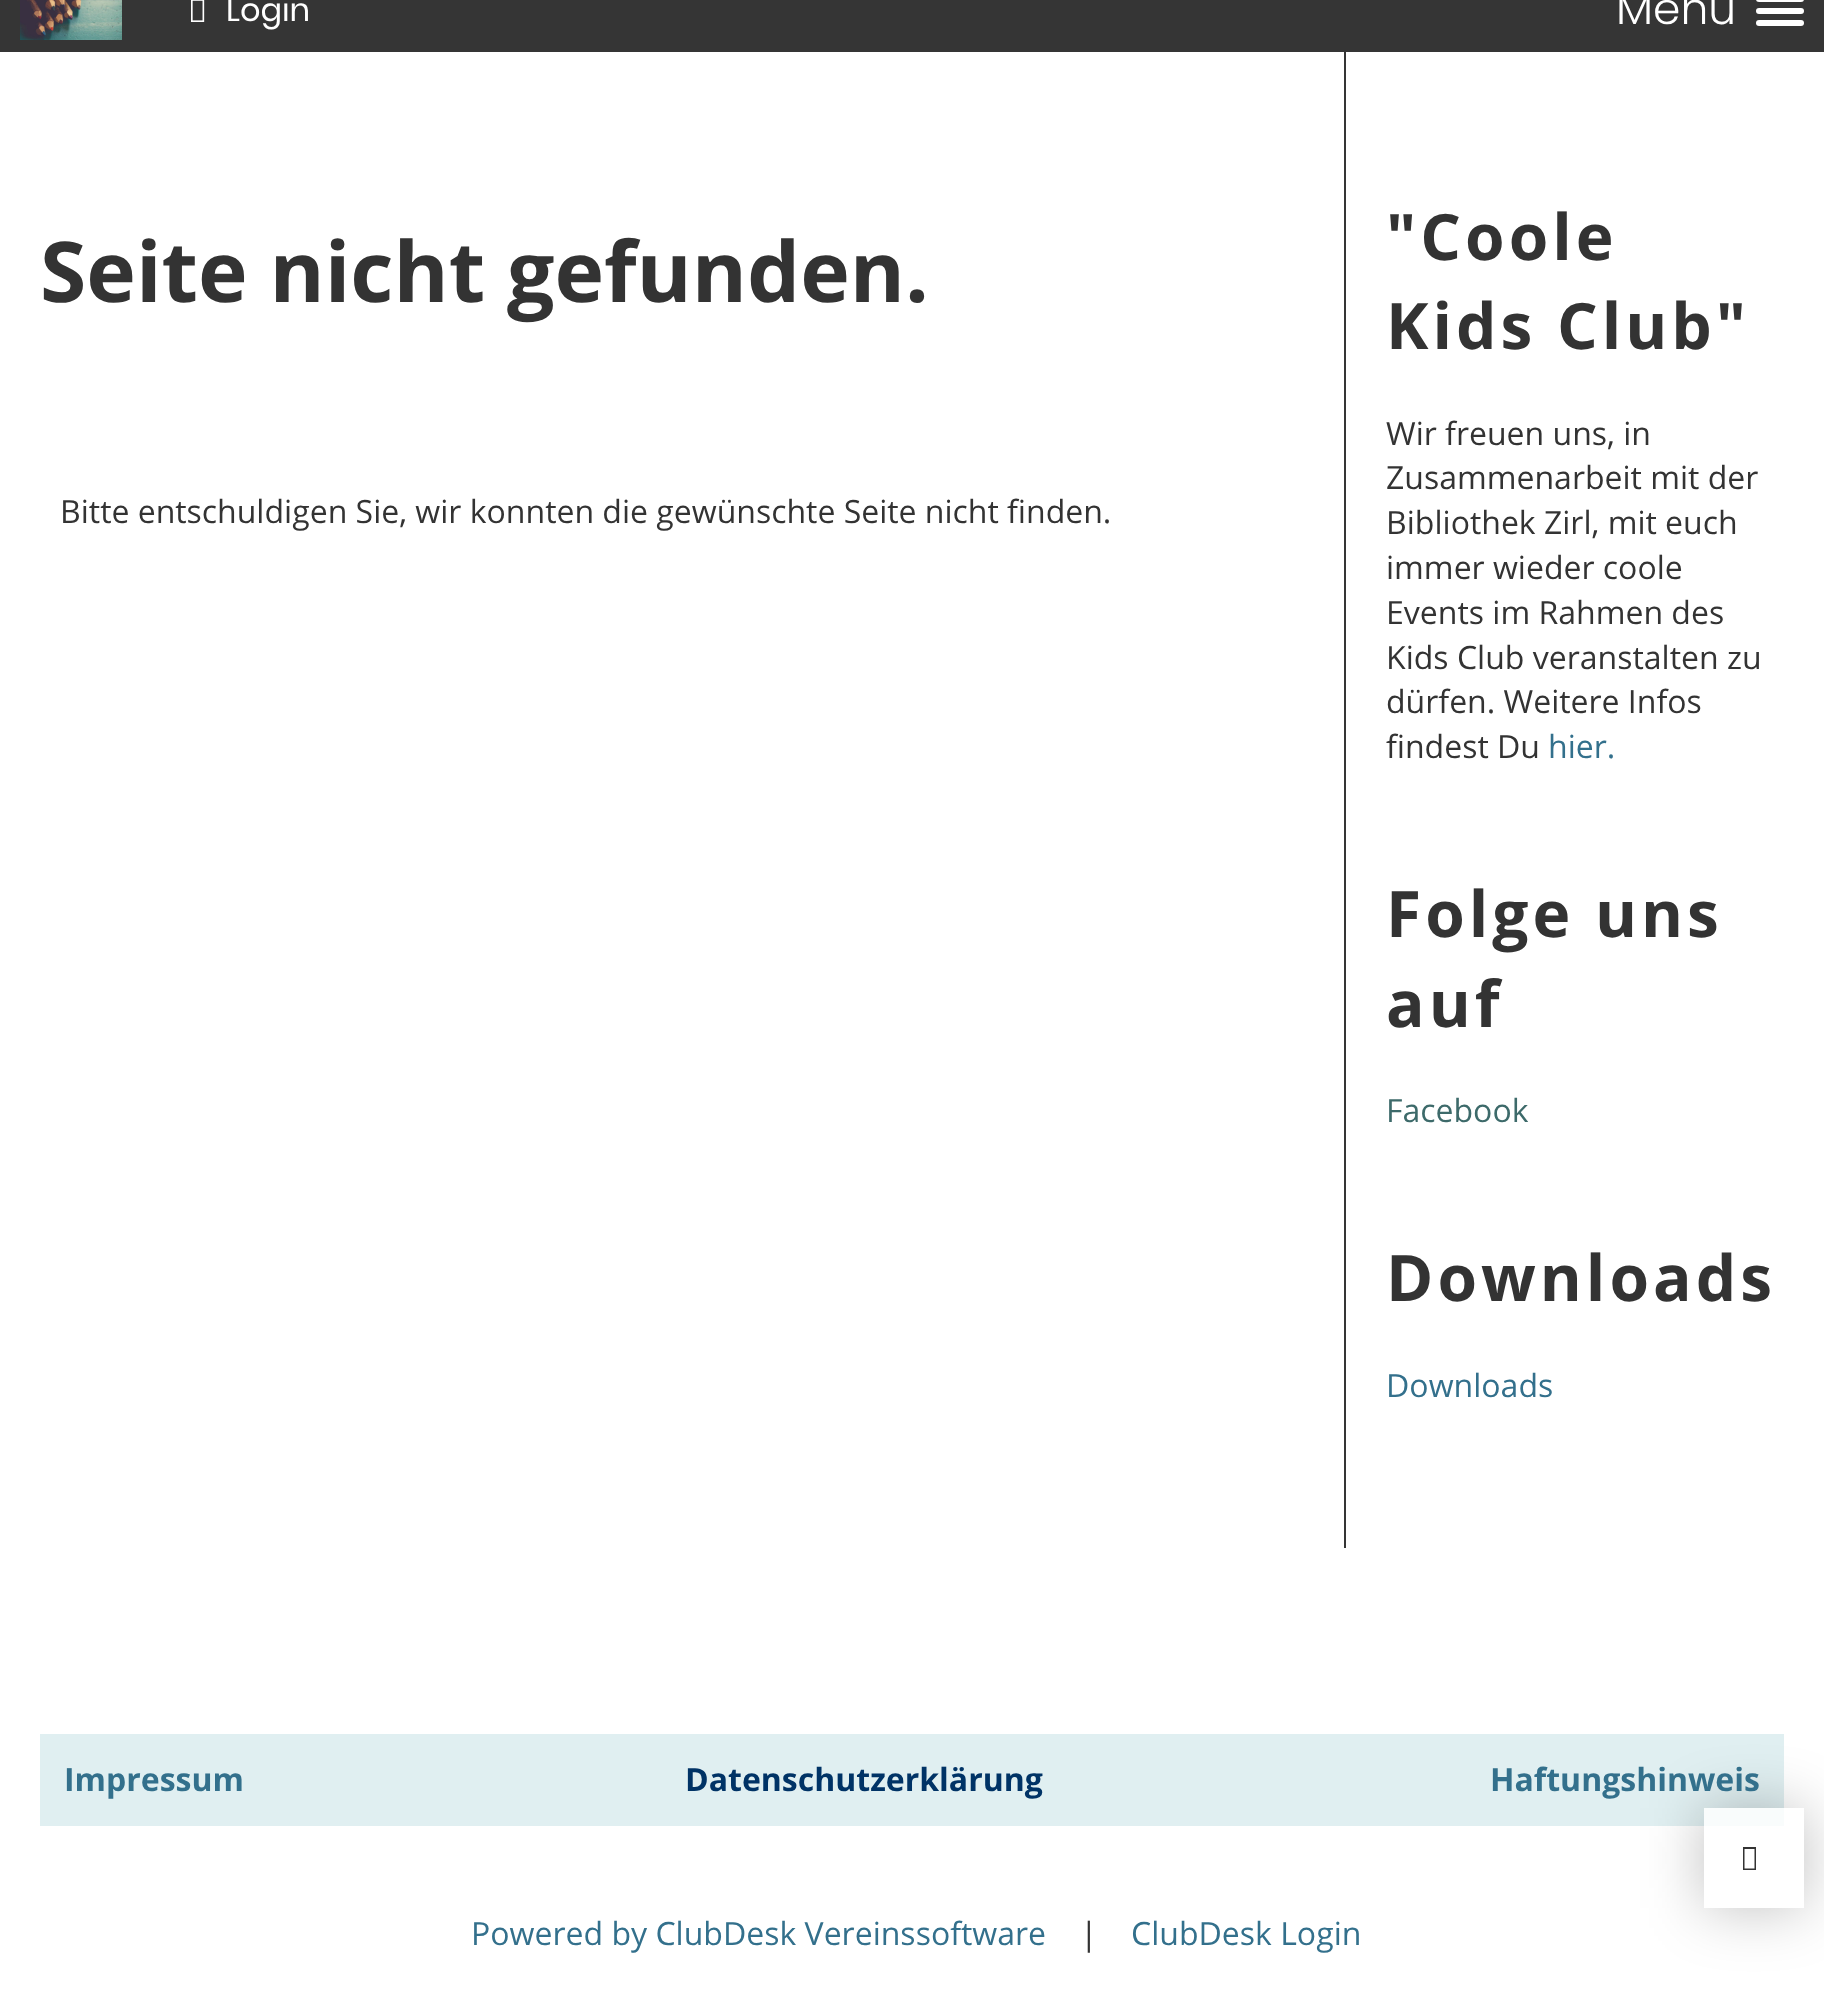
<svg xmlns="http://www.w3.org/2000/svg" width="1824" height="2007">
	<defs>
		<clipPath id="clip1"><path d="M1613 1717H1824V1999H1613ZM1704 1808H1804V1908H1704Z" clip-rule="evenodd" /></clipPath>
	</defs>
	<rect width="100%" height="100%" fill="#FFFFFF" />
	<rect x="0" y="0" width="1824" height="52" fill="#353535" />
	<image x="20" y="0" width="102" height="40" href="assets/img1.png" />
	<image x="191" y="0" width="14" height="22" href="assets/img2.png" />
	<text x="226" y="21" font-family="Poppins" font-size="32" fill="#FFFFFF">Login</text>
	<text x="1616" y="24" font-family="Poppins" font-size="44" font-weight="300" fill="#FFFFFF">Menü</text>
	<rect x="1756" y="-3" width="48" height="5" rx="3" fill="#FFFFFF" />
	<rect x="1756" y="8" width="48" height="6" rx="3" fill="#FFFFFF" />
	<rect x="1756" y="20" width="48" height="6" rx="3" fill="#FFFFFF" />
	<text x="40" y="302" font-family="Open Sans" font-size="84" font-weight="700" fill="#333333">Seite nicht gefunden.</text>
	<text x="60" y="523" font-family="Open Sans" font-size="32" fill="#333333">Bitte entschuldigen Sie, wir konnten die gewünschte Seite nicht finden.</text>
	<rect x="1344" y="52" width="2" height="1496" fill="#353535" />
	<g font-family="Open Sans" font-size="64" font-weight="700" letter-spacing="4" fill="#333333">
		<text x="1386" y="260">"Coole</text>
		<text x="1386" y="349">Kids Club"</text>
	</g>
	<g font-family="Open Sans" font-size="32" fill="#333333">
		<text x="1386" y="445">Wir freuen uns, in</text>
		<text x="1386" y="489">Zusammenarbeit mit der</text>
		<text x="1386" y="534">Bibliothek Zirl, mit euch</text>
		<text x="1386" y="579">immer wieder coole</text>
		<text x="1386" y="624">Events im Rahmen des</text>
		<text x="1386" y="669">Kids Club veranstalten zu</text>
		<text x="1386" y="713">dürfen. Weitere Infos</text>
		<text x="1386" y="758">findest Du</text>
	</g>
	<text x="1548" y="758" font-family="Open Sans" font-size="32" fill="#33708C">hier.</text>
	<g font-family="Open Sans" font-size="64" font-weight="700" letter-spacing="4" fill="#333333">
		<text x="1386" y="937">Folge uns</text>
		<text x="1386" y="1027">auf</text>
	</g>
	<text x="1386" y="1122" font-family="Open Sans" font-size="32" fill="#3D6A6A">Facebook</text>
	<text x="1386" y="1301" font-family="Open Sans" font-size="64" font-weight="700" letter-spacing="4" fill="#333333">Downloads</text>
	<text x="1386" y="1397" font-family="Open Sans" font-size="32" fill="#33708C">Downloads</text>
	<rect x="40" y="1734" width="1744" height="92" fill="#E0EFF1" />
	<rect x="1704" y="1808" width="80" height="18" fill="#F9FCFC" />
	<g clip-path="url(#clip1)">
		<rect x="1704" y="1808" width="100" height="100" fill="#000000" fill-opacity="0.25" filter="blur(30px)" />
	</g>
	<path d="M1743 1870V1847H1756V1870ZM1744.5 1868.5H1754.5V1849H1744.5Z" fill="#333333" />
	<text x="64" y="1791" font-family="Open Sans" font-size="32" font-weight="700" fill="#33708C">Impressum</text>
	<text x="685" y="1791" font-family="Open Sans" font-size="32" font-weight="700" fill="#003366">Datenschutzerklärung</text>
	<text x="1490" y="1791" font-family="Open Sans" font-size="32" font-weight="700" fill="#33708C">Haftungshinweis</text>
	<text x="471" y="1945" font-family="Open Sans" font-size="32" fill="#33708C">Powered by ClubDesk Vereinssoftware</text>
	<text x="1080" y="1945" font-family="Open Sans" font-size="32" fill="#333333">|</text>
	<text x="1131" y="1945" font-family="Open Sans" font-size="32" fill="#33708C">ClubDesk Login</text>
</svg>
